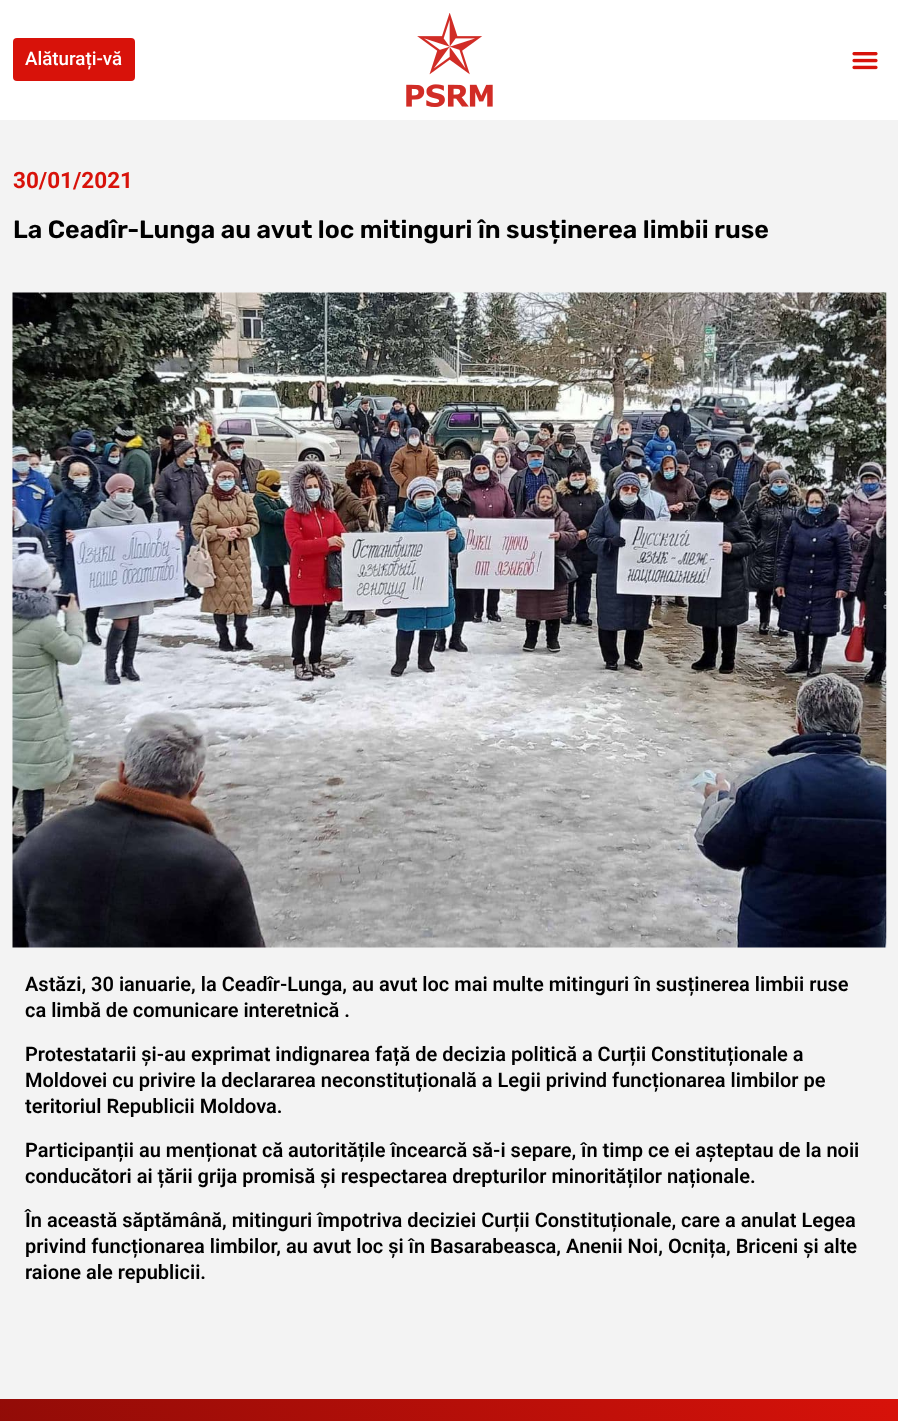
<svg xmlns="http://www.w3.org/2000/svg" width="898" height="1421">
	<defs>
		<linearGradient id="g1" gradientUnits="userSpaceOnUse" x1="807" y1="1300" x2="92" y2="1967"><stop offset="0" stop-color="#D8120A" /><stop offset="1" stop-color="#720906" /></linearGradient>
	</defs>
	<rect width="100%" height="100%" fill="#FFFFFF" />
	<rect x="13" y="38" width="122" height="43" rx="4" fill="#D8120A" />
	<text x="25" y="65" font-family="Roboto" font-size="18.75" font-weight="500" fill="#FFFFFF">Alăturați-vă</text>
	<image x="406" y="13" width="87" height="94" href="assets/img1.png" />
	<image x="852" y="52" width="26" height="18" href="assets/img2.png" />
	<rect x="0" y="120" width="898" height="1279" fill="#F3F3F3" />
	<text x="13" y="188" font-family="Roboto" font-size="22.5" font-weight="700" fill="#D8120A">30/01/2021</text>
	<text x="13" y="238" font-family="Rubik" font-size="25" font-weight="600" fill="#000000">La Ceadîr-Lunga au avut loc mitinguri în susținerea limbii ruse</text>
	<image x="12" y="292" width="875" height="656" href="assets/img3.png" />
	<g font-family="Roboto" font-size="20" font-weight="600" fill="#000000">
		<text x="25" y="991">Astăzi, 30 ianuarie, la Ceadîr-Lunga, au avut loc mai multe mitinguri în susținerea limbii ruse</text>
		<text x="25" y="1017">ca limbă de comunicare interetnică .</text>
		<text x="25" y="1061">Protestatarii și-au exprimat indignarea față de decizia politică a Curții Constituționale a</text>
		<text x="25" y="1087">Moldovei cu privire la declararea neconstituțională a Legii privind funcționarea limbilor pe</text>
		<text x="25" y="1113">teritoriul Republicii Moldova.</text>
		<text x="25" y="1157">Participanții au menționat că autoritățile încearcă să-i separe, în timp ce ei așteptau de la noii</text>
		<text x="25" y="1183">conducători ai țării grija promisă și respectarea drepturilor minorităților naționale.</text>
		<text x="25" y="1227">În această săptămână, mitinguri împotriva deciziei Curții Constituționale, care a anulat Legea</text>
		<text x="25" y="1253">privind funcționarea limbilor, au avut loc și în Basarabeasca, Anenii Noi, Ocnița, Briceni și alte</text>
		<text x="25" y="1279">raione ale republicii.</text>
	</g>
	<rect x="0" y="1399" width="898" height="22" fill="url(#g1)" />
</svg>
